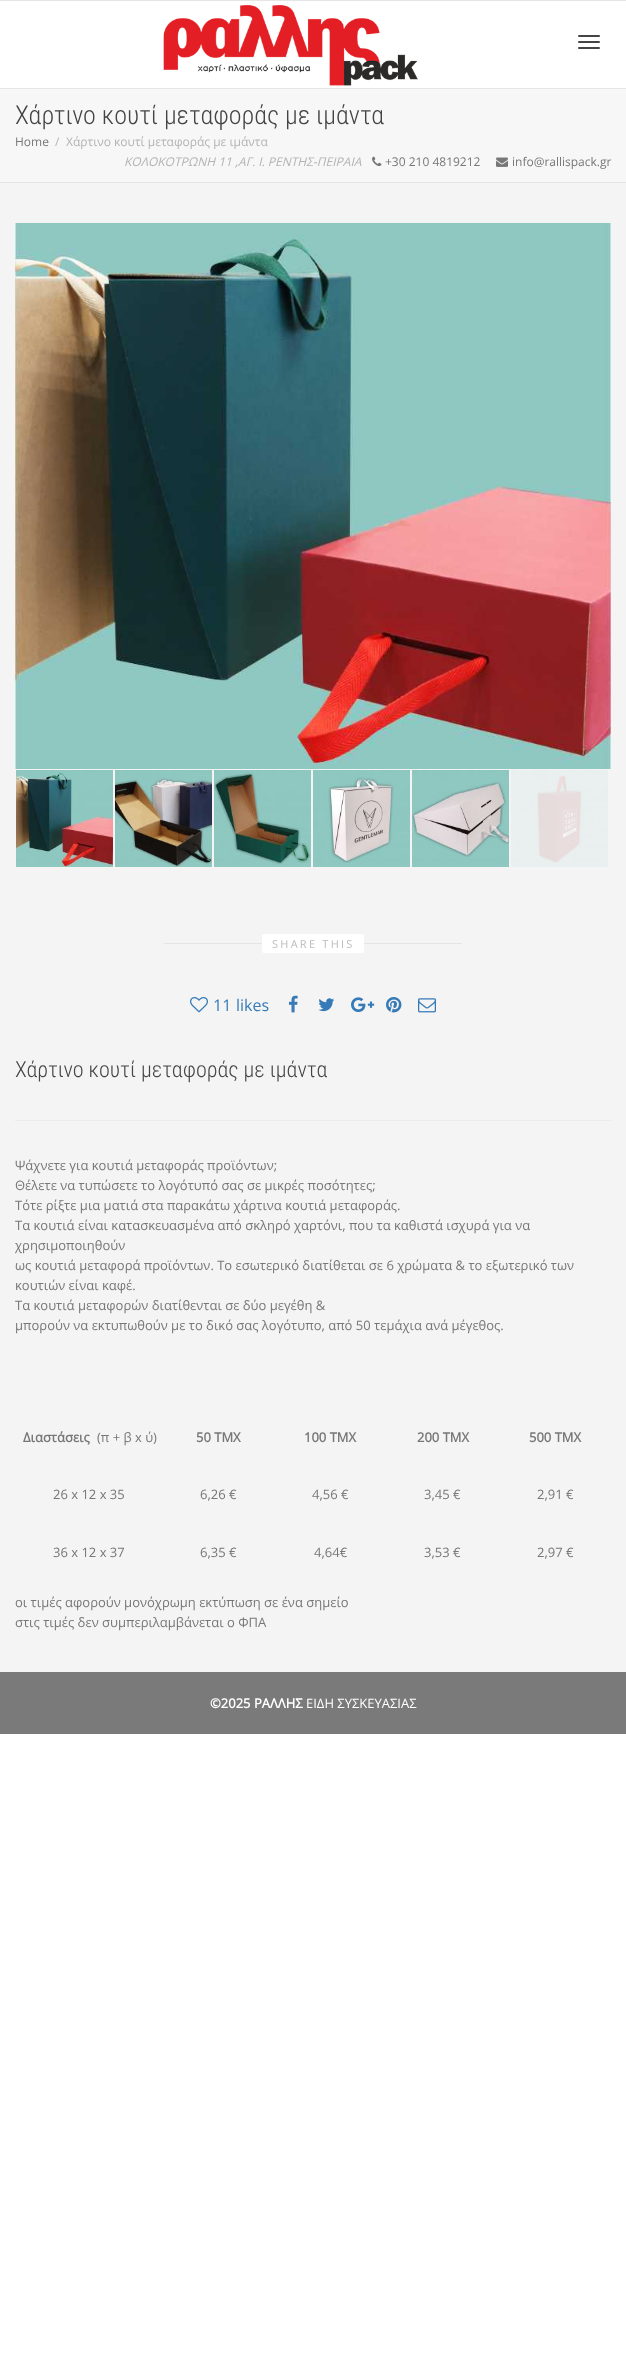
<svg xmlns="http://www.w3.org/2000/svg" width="626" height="2363">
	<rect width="100%" height="100%" fill="#FFFFFF" />
	<rect x="0" y="0" width="626" height="1" fill="#E5E5E5" />
	<rect x="0" y="88" width="626" height="1" fill="#E5E5E5" />
	<image x="163" y="5" width="255" height="81" href="assets/img1.png" />
	<rect x="578" y="35" width="22" height="2" rx="1" fill="#444444" />
	<rect x="578" y="41" width="22" height="2" rx="1" fill="#444444" />
	<rect x="578" y="47" width="22" height="2" rx="1" fill="#444444" />
	<rect x="0" y="89" width="626" height="93" fill="#F7F7F7" />
	<rect x="0" y="182" width="626" height="1" fill="#E5E5E5" />
	<text x="15" y="124" font-family="Roboto Condensed" font-size="26" font-weight="300" fill="#444444">Χάρτινο κουτί μεταφοράς με ιμάντα</text>
	<text x="15" y="146" font-family="Open Sans" font-size="12" fill="#777777">Home</text>
	<g font-family="Open Sans" font-size="12" fill="#B3B3B3">
		<text x="55" y="146">/</text>
		<text x="66" y="146">Χάρτινο κουτί μεταφοράς με ιμάντα</text>
	</g>
	<text x="124" y="166" font-family="Open Sans" font-size="12" font-style="italic" fill="#B3B3B3">ΚΟΛΟΚΟΤΡΩΝΗ 11 ,ΑΓ. Ι. ΡΕΝΤΗΣ-ΠΕΙΡΑΙΑ</text>
	<image x="372" y="156" width="10" height="11" href="assets/img2.png" />
	<text x="385" y="166" font-family="Open Sans" font-size="12" fill="#777777">+30 210 4819212</text>
	<image x="496" y="157" width="12" height="10" href="assets/img3.png" />
	<text x="512" y="166" font-family="Open Sans" font-size="12" fill="#777777">info@rallispack.gr</text>
	<rect x="0" y="183" width="626" height="1489" fill="#F4F4F4" />
	<image x="15" y="223" width="596" height="546" href="assets/img4.png" />
	<image x="16" y="770" width="97" height="97" href="assets/img5.png" />
	<image x="115" y="770" width="97" height="97" href="assets/img6.png" />
	<image x="214" y="770" width="97" height="97" href="assets/img7.png" />
	<image x="313" y="770" width="97" height="97" href="assets/img8.png" />
	<image x="412" y="770" width="97" height="97" href="assets/img9.png" />
	<image x="511" y="770" width="97" height="97" href="assets/img10.png" />
	<rect x="164" y="943" width="298" height="1" fill="#E5E5E5" />
	<rect x="262" y="934" width="102" height="19" rx="2" fill="#FFFFFF" />
	<text x="272" y="948" font-family="Open Sans" font-size="11" letter-spacing="2.25" fill="#BBBBBB">SHARE THIS</text>
	<image x="190" y="997" width="18" height="16" href="assets/img11.png" />
	<g font-family="Open Sans" font-size="16" fill="#367BB7">
		<text x="213" y="1011">11</text>
		<text x="236" y="1011">likes</text>
	</g>
	<image x="288" y="995" width="10" height="18" href="assets/img12.png" />
	<image x="318" y="998" width="17" height="14" href="assets/img13.png" />
	<image x="351" y="997" width="24" height="16" href="assets/img14.png" />
	<image x="386" y="997" width="16" height="16" href="assets/img15.png" />
	<image x="418" y="998" width="18" height="15" href="assets/img16.png" />
	<text x="15" y="1077" font-family="Roboto Condensed" font-size="22" font-weight="300" fill="#444444">Χάρτινο κουτί μεταφοράς με ιμάντα</text>
	<rect x="15" y="1120" width="596" height="1" fill="#EBEBEB" />
	<g font-family="Open Sans" font-size="13" fill="#777777">
		<text x="15" y="1170">Ψάχνετε για κουτιά μεταφοράς προϊόντων;</text>
		<text x="15" y="1190">Θέλετε να τυπώσετε το λογότυπό σας σε μικρές ποσότητες;</text>
		<text x="15" y="1210">Τότε ρίξτε μια ματιά στα παρακάτω χάρτινα κουτιά μεταφοράς.</text>
		<text x="15" y="1230">Τα κουτιά είναι κατασκευασμένα από σκληρό χαρτόνι, που τα καθιστά ισχυρά για να</text>
		<text x="15" y="1250">χρησιμοποιηθούν</text>
		<text x="15" y="1270">ως κουτιά μεταφορά προϊόντων. Το εσωτερικό διατίθεται σε 6 χρώματα &amp; το εξωτερικό των</text>
		<text x="15" y="1290">κουτιών είναι καφέ.</text>
		<text x="15" y="1310">Τα κουτιά μεταφορών διατίθενται σε δύο μεγέθη &amp;</text>
		<text x="15" y="1330">μπορούν να εκτυπωθούν με το δικό σας λογότυπο, από 50 τεμάχια ανά μέγεθος.</text>
	</g>
	<text x="23" y="1442" font-family="Open Sans" font-size="13" font-weight="700" fill="#777777">Διαστάσεις</text>
	<text x="97" y="1442" font-family="Open Sans" font-size="13" fill="#777777">(π + β x ύ)</text>
	<g font-family="Open Sans" font-size="13" font-weight="700" fill="#777777">
		<text x="196" y="1442">50 TMX</text>
		<text x="304" y="1442">100 TMX</text>
		<text x="417" y="1442">200 TMX</text>
		<text x="529" y="1442">500 TMX</text>
	</g>
	<g font-family="Open Sans" font-size="13" fill="#777777">
		<text x="53" y="1499">26 x 12 x 35</text>
		<text x="200" y="1499">6,26 €</text>
		<text x="312" y="1499">4,56 €</text>
		<text x="424" y="1499">3,45 €</text>
		<text x="537" y="1499">2,91 €</text>
		<text x="53" y="1557">36 x 12 x 37</text>
		<text x="200" y="1557">6,35 €</text>
		<text x="314" y="1557">4,64€</text>
		<text x="424" y="1557">3,53 €</text>
		<text x="537" y="1557">2,97 €</text>
		<text x="15" y="1607">οι τιμές αφορούν μονόχρωμη εκτύπωση σε ένα σημείο</text>
		<text x="15" y="1627">στις τιμές δεν συμπεριλαμβάνεται ο ΦΠΑ</text>
	</g>
	<rect x="0" y="1672" width="626" height="62" fill="#7A7A7A" />
	<text x="210" y="1708" font-family="Open Sans" font-size="13" font-weight="700" fill="#FFFFFF">©2025 ΡΑΛΛΗΣ</text>
	<text x="306" y="1708" font-family="Open Sans" font-size="13" fill="#FFFFFF">ΕΙΔΗ ΣΥΣΚΕΥΑΣΙΑΣ</text>
</svg>
